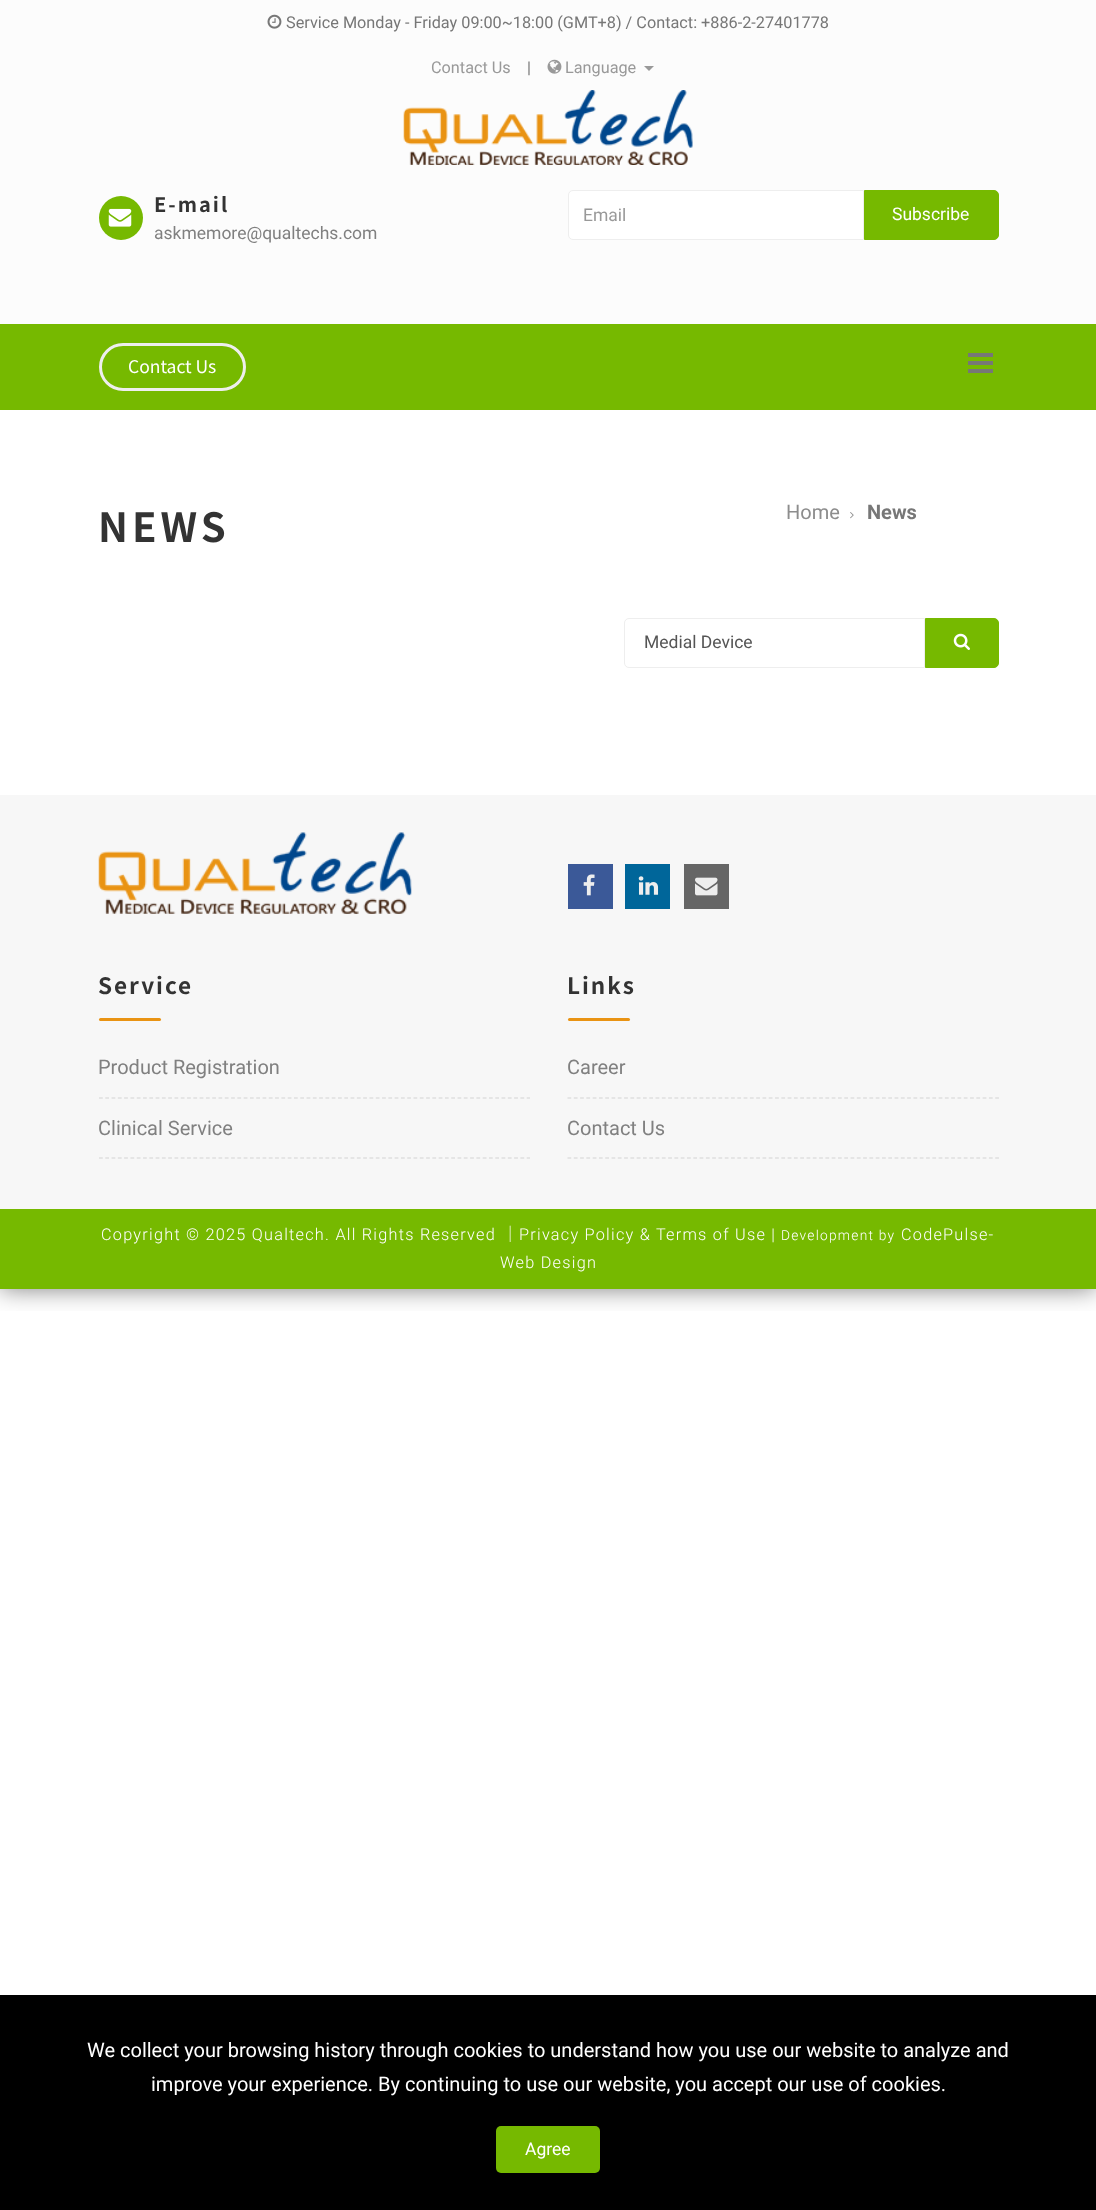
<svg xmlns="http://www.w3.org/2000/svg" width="1096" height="2210">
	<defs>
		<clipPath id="clip1"><rect x="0" y="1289" width="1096" height="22" /></clipPath>
	</defs>
	<rect width="100%" height="100%" fill="#FFFFFF" />
	<g clip-path="url(#clip1)">
		<rect x="0" y="0" width="1096" height="1289" fill="#000000" fill-opacity="0.5" filter="blur(12.5px)" />
	</g>
	<rect x="0" y="0" width="1096" height="324" fill="#FCFCFC" />
	<image x="267" y="14" width="15" height="15" href="assets/img1.png" />
	<text x="286" y="28" font-family="Roboto" font-size="16.25" fill="#777777">Service Monday - Friday 09:00~18:00 (GMT+8) / Contact: +886-2-27401778</text>
	<text x="431" y="73" font-family="Roboto" font-size="16.25" fill="#999999">Contact Us</text>
	<text x="527" y="73" font-family="Roboto" font-size="16.25" fill="#777777">|</text>
	<image x="547" y="59" width="15" height="15" href="assets/img2.png" />
	<text x="565" y="73" font-family="Roboto" font-size="16.25" fill="#999999">Language</text>
	<path d="M644 66H654L649 71Z" fill="#999999" />
	<image x="403" y="90" width="290" height="75" href="assets/img3.png" />
	<circle cx="121" cy="218" r="22" fill="#76B900" />
	<image x="108" y="208" width="24" height="19" href="assets/img4.png" />
	<text x="154" y="212" font-family="Noto Sans TC" font-size="20" font-weight="700" letter-spacing="2" fill="#333333">E-mail</text>
	<text x="154" y="239" font-family="Roboto" font-size="17.5" fill="#808080">askmemore@qualtechs.com</text>
	<path d="M573 190.5H863.5V239.5H573C570.5 239.5 568.5 237.5 568.5 235V195C568.5 192.5 570.5 190.5 573 190.5Z" fill="#FFFFFF" stroke="#EEEEEE" />
	<text x="583" y="221" font-family="Roboto" font-size="17.5" fill="#999999">Email</text>
	<path d="M864.5 190.5H994C996.5 190.5 998.5 192.5 998.5 195V235C998.5 237.5 996.5 239.5 994 239.5H864.5Z" fill="#76B900" stroke="#76B900" />
	<text x="892" y="220" font-family="Roboto" font-size="17.5" fill="#FFFFFF">Subscribe</text>
	<rect x="0" y="324" width="1096" height="86" fill="#76B900" />
	<rect x="100.5" y="344.5" width="144" height="45" rx="22.5" fill="none" stroke="#EEEEEE" stroke-width="3" />
	<text x="128" y="373" font-family="Noto Sans TC" font-size="17.5" fill="#FFFFFF">Contact Us</text>
	<rect x="968" y="353" width="25" height="4" fill="#777777" />
	<rect x="968" y="361" width="25" height="4" fill="#777777" />
	<rect x="968" y="369" width="25" height="4" fill="#777777" />
	<text x="98" y="542" font-family="Noto Sans TC" font-size="40" font-weight="700" letter-spacing="4" fill="#333333">NEWS</text>
	<text x="786" y="519" font-family="Roboto" font-size="20" fill="#8D8D8D">Home</text>
	<image x="850" y="512" width="4" height="7" href="assets/img5.png" />
	<text x="867" y="519" font-family="Roboto" font-size="20" font-weight="700" fill="#777777">News</text>
	<path d="M629 618.5H924.5V667.5H629C626.5 667.5 624.5 665.5 624.5 663V623C624.5 620.5 626.5 618.5 629 618.5Z" fill="none" stroke="#EEEEEE" />
	<text x="644" y="648" font-family="Roboto" font-size="17.5" fill="#555555">Medial Device</text>
	<path d="M925.5 618.5H994C996.5 618.5 998.5 620.5 998.5 623V663C998.5 665.5 996.5 667.5 994 667.5H925.5Z" fill="#76B900" stroke="#76B900" />
	<image x="953" y="633" width="17" height="17" href="assets/img6.png" />
	<rect x="0" y="795" width="1096" height="414" fill="#F7F7F7" />
	<image x="98" y="832" width="314" height="82" href="assets/img7.png" />
	<rect x="568" y="864" width="45" height="45" fill="#3B5998" />
	<image x="583" y="874" width="12" height="22" href="assets/img8.png" />
	<rect x="625" y="864" width="45" height="45" fill="#00669A" />
	<image x="638" y="876" width="21" height="19" href="assets/img9.png" />
	<rect x="684" y="864" width="45" height="45" fill="#666666" />
	<image x="695" y="877" width="23" height="19" href="assets/img10.png" />
	<text x="98" y="994" font-family="Noto Sans TC" font-size="22.5" font-weight="700" letter-spacing="2" fill="#333333">Service</text>
	<rect x="99" y="1018" width="62" height="3" rx="1.5" fill="#E99313" />
	<path d="M99 1098H530" fill="none" stroke="#D3D3D3" stroke-width="1.2" stroke-dasharray="3.75 2.54" />
	<text x="98" y="1074" font-family="Roboto" font-size="20" fill="#808080">Product Registration</text>
	<path d="M99 1158H530" fill="none" stroke="#D3D3D3" stroke-width="1.2" stroke-dasharray="3.75 2.54" />
	<text x="98" y="1135" font-family="Roboto" font-size="20" fill="#808080">Clinical Service</text>
	<text x="567" y="994" font-family="Noto Sans TC" font-size="22.5" font-weight="700" letter-spacing="2" fill="#333333">Links</text>
	<rect x="568" y="1018" width="62" height="3" rx="1.5" fill="#E99313" />
	<path d="M567.5 1098H999" fill="none" stroke="#D3D3D3" stroke-width="1.2" stroke-dasharray="3.75 2.54" />
	<text x="567" y="1074" font-family="Roboto" font-size="20" fill="#808080">Career</text>
	<path d="M567.5 1158H999" fill="none" stroke="#D3D3D3" stroke-width="1.2" stroke-dasharray="3.75 2.54" />
	<text x="567" y="1135" font-family="Roboto" font-size="20" fill="#808080">Contact Us</text>
	<rect x="0" y="1209" width="1096" height="80" fill="#76B900" />
	<text x="101" y="1240" font-family="Roboto" font-size="16.25" font-weight="300" letter-spacing="1.25" fill="#FFFFFF">Copyright © 2025 Qualtech. All Rights Reserved</text>
	<text x="502" y="1240" font-family="Noto Sans TC" font-size="16.25" font-weight="300" letter-spacing="1.25" fill="#FFFFFF">｜</text>
	<text x="519" y="1240" font-family="Roboto" font-size="16.25" font-weight="300" letter-spacing="1.25" fill="#FFFFFF">Privacy Policy &amp; Terms of Use |</text>
	<text x="781" y="1240" font-family="Roboto" font-size="13.75" font-weight="300" letter-spacing="1.25" fill="#FFFFFF">Development by</text>
	<g font-family="Roboto" font-size="16.25" font-weight="300" letter-spacing="1.25" fill="#FFFFFF">
		<text x="901" y="1240">CodePulse-</text>
		<text x="500" y="1268">Web Design</text>
	</g>
	<rect x="0" y="1995" width="1096" height="215" fill="#000000" />
	<g font-family="Roboto" font-size="20" fill="#FFFFFF">
		<text x="87" y="2057">We collect your browsing history through cookies to understand how you use our website to analyze and</text>
		<text x="151" y="2091">improve your experience. By continuing to use our website, you accept our use of cookies.</text>
	</g>
	<rect x="496" y="2126" width="104" height="47" rx="5" fill="#76B900" />
	<text x="525" y="2155" font-family="Roboto" font-size="17.5" fill="#FFFFFF">Agree</text>
</svg>
